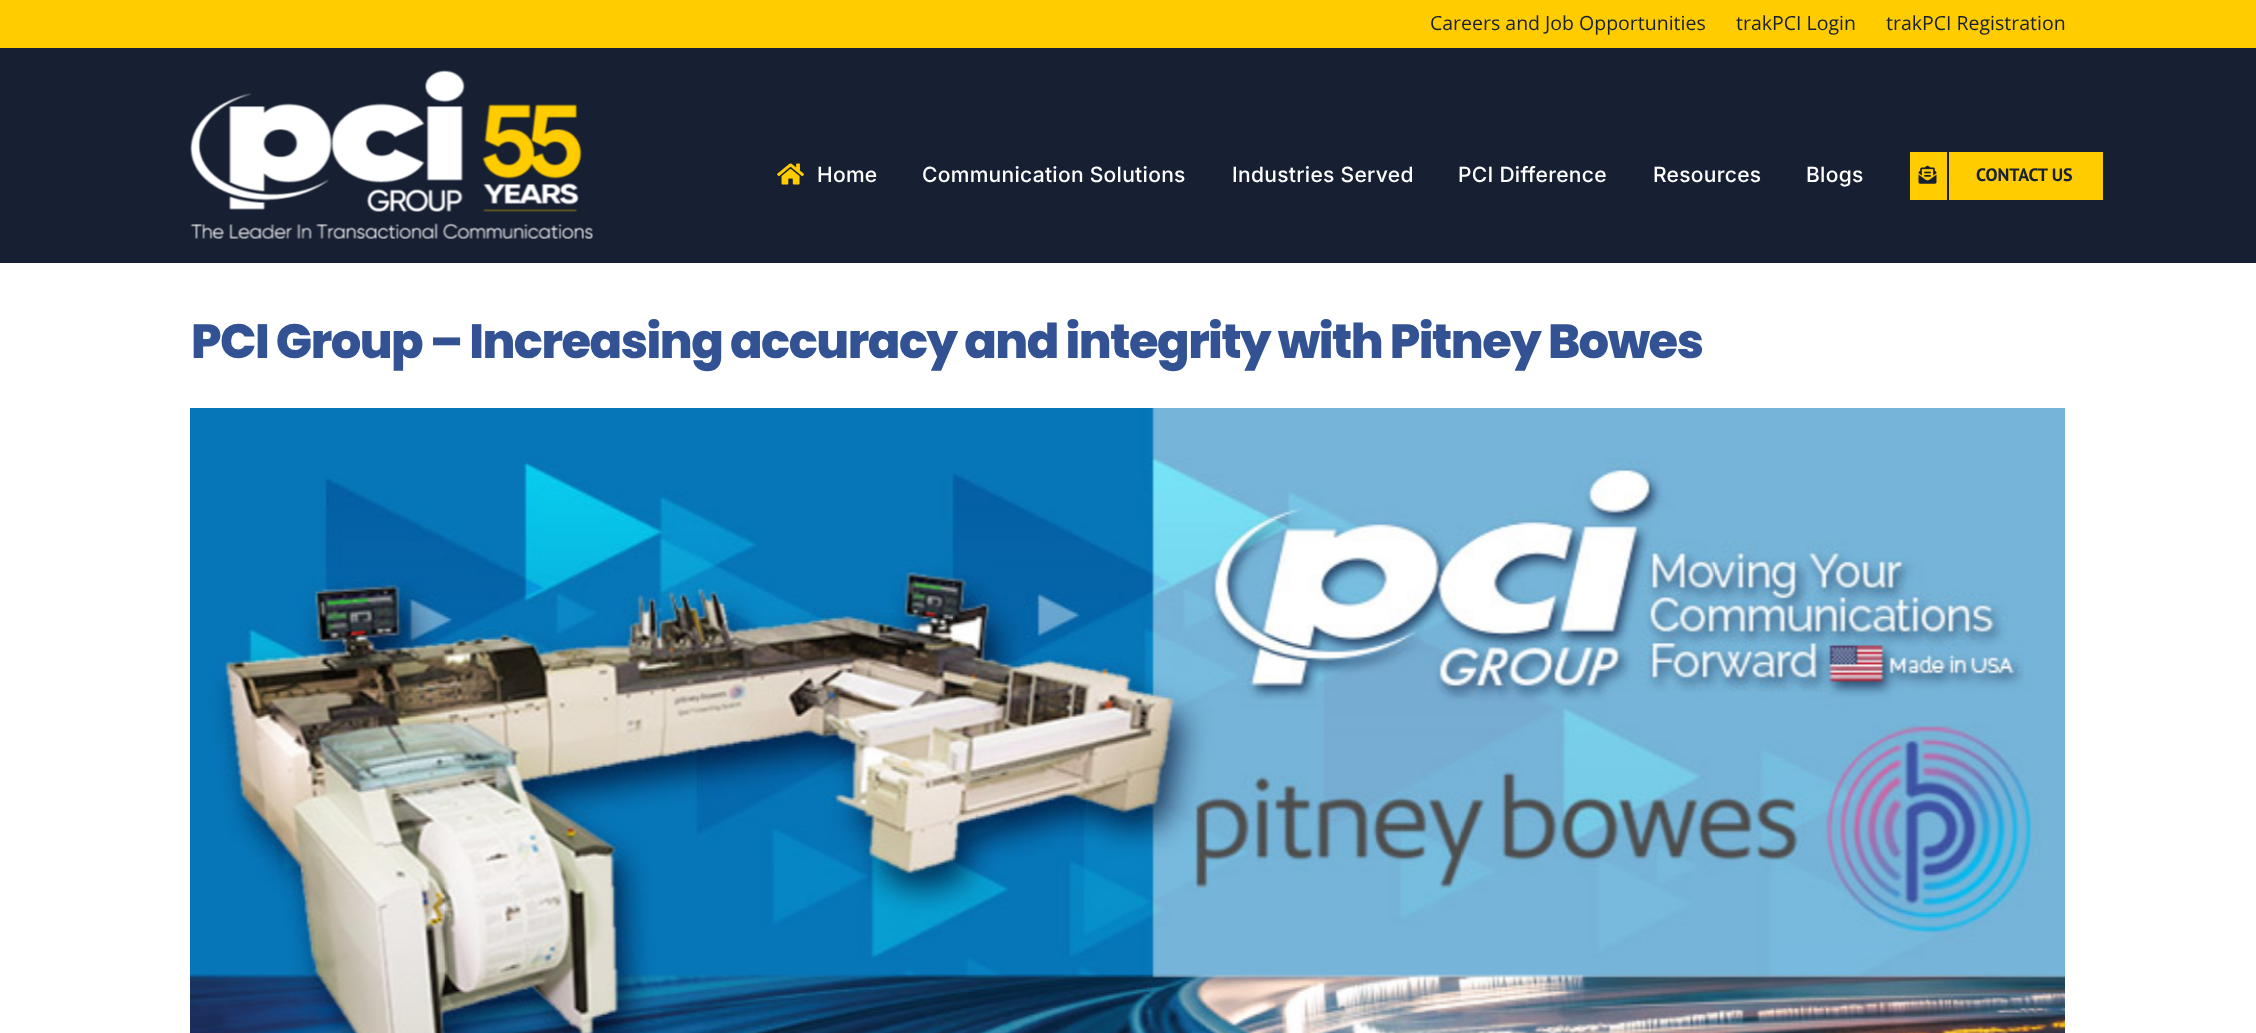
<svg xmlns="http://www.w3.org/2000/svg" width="2256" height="1033">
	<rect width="100%" height="100%" fill="#FFFFFF" />
	<rect x="0" y="0" width="2256" height="48" fill="#FFCC00" />
	<g font-family="Open Sans" font-size="19.5" fill="#171F32">
		<text x="1430" y="30">Careers and Job Opportunities</text>
		<text x="1736" y="30">trakPCI Login</text>
		<text x="1886" y="30">trakPCI Registration</text>
	</g>
	<rect x="0" y="48" width="2256" height="215" fill="#171F32" />
	<image x="190" y="70" width="403" height="169" href="assets/img1.png" />
	<image x="777" y="163" width="27" height="22" href="assets/img2.png" />
	<g font-family="Inter" font-size="21" font-weight="500" letter-spacing="0.3" fill="#FFFFFF">
		<text x="817" y="182">Home</text>
		<text x="922" y="182">Communication Solutions</text>
		<text x="1232" y="182">Industries Served</text>
		<text x="1458" y="182">PCI Difference</text>
		<text x="1653" y="182">Resources</text>
		<text x="1806" y="182">Blogs</text>
	</g>
	<rect x="1910" y="152" width="193" height="48" fill="#FFCC00" />
	<rect x="1947" y="152" width="2" height="48" fill="#171F32" />
	<image x="1918" y="165" width="19" height="19" href="assets/img3.png" />
	<text x="1976" y="181" font-family="PT Sans" font-size="18" font-weight="700" fill="#171F32">CONTACT US</text>
	<text x="191" y="358" font-family="Poppins" font-size="48" font-weight="800" letter-spacing="-1.5" fill="#325293">PCI Group – Increasing accuracy and integrity with Pitney Bowes</text>
	<image x="190" y="408" width="1875" height="625" href="assets/img4.png" />
</svg>
